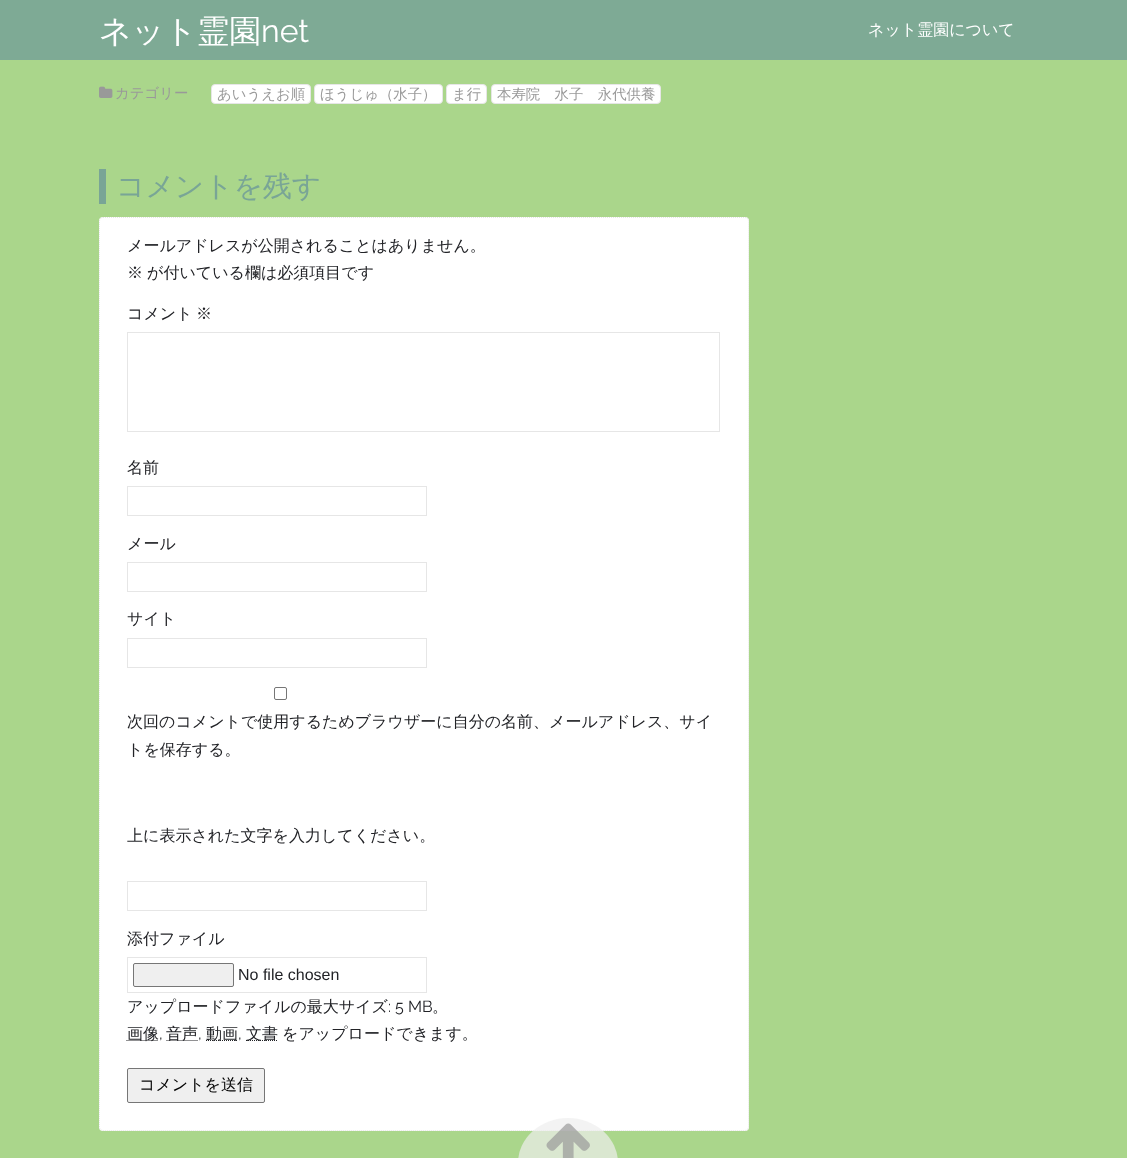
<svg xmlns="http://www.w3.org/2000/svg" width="1127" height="1158">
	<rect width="100%" height="100%" fill="#AAD68B" />
	<rect x="0" y="0" width="1127" height="60" fill="#7EAA95" />
	<text x="99" y="42" font-family="WenQuanYi Zen Hei" font-size="32" font-weight="500" fill="#FFFFFF">ネット霊園</text>
	<text x="261" y="42" font-family="Raleway" font-size="32" font-weight="100" fill="#FFFFFF">net</text>
	<text x="868" y="35" font-family="WenQuanYi Zen Hei" font-size="16" font-weight="500" fill="#FFFFFF">ネット霊園について</text>
	<image x="99" y="86" width="14" height="12" href="assets/img1.png" />
	<text x="115" y="98" font-family="WenQuanYi Zen Hei" font-size="14.4" font-weight="500" fill="#999999">カテゴリー</text>
	<rect x="211.5" y="84.5" width="99" height="19" rx="3.5" fill="#FFFFFF" stroke="#E6E6E6" />
	<text x="217" y="99" font-family="WenQuanYi Zen Hei" font-size="14.4" font-weight="500" fill="#999999">あいうえお順</text>
	<rect x="314.5" y="84.5" width="128" height="19" rx="3.5" fill="#FFFFFF" stroke="#E6E6E6" />
	<text x="320" y="99" font-family="WenQuanYi Zen Hei" font-size="14.4" font-weight="500" fill="#999999">ほうじゅ（水子）</text>
	<rect x="446.5" y="84.5" width="40" height="19" rx="3.5" fill="#FFFFFF" stroke="#E6E6E6" />
	<text x="452" y="99" font-family="WenQuanYi Zen Hei" font-size="14.4" font-weight="500" fill="#999999">ま行</text>
	<rect x="491.5" y="84.5" width="169" height="19" rx="3.5" fill="#FFFFFF" stroke="#E6E6E6" />
	<text x="497" y="99" font-family="WenQuanYi Zen Hei" font-size="14.4" font-weight="500" fill="#999999">本寿院　水子　永代供養</text>
	<rect x="99" y="169" width="7" height="35" fill="#79A596" />
	<text x="116" y="196" font-family="WenQuanYi Zen Hei" font-size="28.75" font-weight="500" fill="#79A596">コメントを残す</text>
	<rect x="99" y="217" width="650" height="914" rx="4" fill="#FFFFFF" />
	<path d="M103 217.5H745C747 217.5 748.5 219 748.5 221V1127C748.5 1129 747 1130.5 745 1130.5H103C101 1130.5 99.5 1129 99.5 1127V221C99.5 219 101 217.5 103 217.5Z" fill="none" stroke="#E6E6E6" stroke-dasharray="1 1" />
	<g font-family="WenQuanYi Zen Hei" font-size="16" font-weight="500" fill="#222327">
		<text x="127" y="251">メールアドレスが公開されることはありません。</text>
		<text x="127" y="278">※</text>
		<text x="147" y="278">が付いている欄は必須項目です</text>
		<text x="127" y="319">コメント</text>
		<text x="196" y="319">※</text>
	</g>
	<rect x="127.5" y="332.5" width="592" height="99" fill="none" stroke="#E6E6E6" />
	<text x="127" y="473" font-family="WenQuanYi Zen Hei" font-size="16" font-weight="500" fill="#222327">名前</text>
	<rect x="127.5" y="486.5" width="299" height="29" fill="none" stroke="#E6E6E6" />
	<text x="127" y="549" font-family="WenQuanYi Zen Hei" font-size="16" font-weight="500" fill="#222327">メール</text>
	<rect x="127.5" y="562.5" width="299" height="29" fill="none" stroke="#E6E6E6" />
	<text x="127" y="624" font-family="WenQuanYi Zen Hei" font-size="16" font-weight="500" fill="#222327">サイト</text>
	<rect x="127.5" y="638.5" width="299" height="29" fill="none" stroke="#E6E6E6" />
	<rect x="274.5" y="687.5" width="12" height="12" rx="1.5" fill="none" stroke="#767676" />
	<g font-family="WenQuanYi Zen Hei" font-size="16" font-weight="500" fill="#222327">
		<text x="127" y="727">次回のコメントで使用するためブラウザーに自分の名前、メールアドレス、サイ</text>
		<text x="127" y="755">トを保存する。</text>
		<text x="127" y="841">上に表示された文字を入力してください。</text>
	</g>
	<rect x="127.5" y="881.5" width="299" height="29" fill="none" stroke="#E6E6E6" />
	<text x="127" y="944" font-family="WenQuanYi Zen Hei" font-size="16" font-weight="500" fill="#222327">添付ファイル</text>
	<rect x="127.5" y="957.5" width="299" height="35" fill="none" stroke="#E6E6E6" />
	<rect x="133.5" y="963.5" width="100" height="23" rx="1.5" fill="#EFEFEF" stroke="#767676" />
	<text x="238" y="980" font-family="Liberation Sans" font-size="16" fill="#222327">No file chosen</text>
	<text x="127" y="1012" font-family="WenQuanYi Zen Hei" font-size="16" font-weight="500" fill="#222327">アップロードファイルの最大サイズ</text>
	<text x="388" y="1012" font-family="Raleway" font-size="16" font-weight="100" fill="#222327">: 5 MB</text>
	<text x="432" y="1012" font-family="WenQuanYi Zen Hei" font-size="16" font-weight="500" fill="#222327">。</text>
	<path d="M126.5 1040.5H158.5" fill="none" stroke="#222327" stroke-dasharray="1 1" />
	<text x="127" y="1039" font-family="WenQuanYi Zen Hei" font-size="16" font-weight="500" fill="#222327">画像</text>
	<text x="159" y="1039" font-family="Raleway" font-size="16" font-weight="100" fill="#222327">,</text>
	<path d="M166.5 1040.5H198.5" fill="none" stroke="#222327" stroke-dasharray="1 1" />
	<text x="166" y="1039" font-family="WenQuanYi Zen Hei" font-size="16" font-weight="500" fill="#222327">音声</text>
	<text x="198" y="1039" font-family="Raleway" font-size="16" font-weight="100" fill="#222327">,</text>
	<path d="M206 1040.5H238" fill="none" stroke="#222327" stroke-dasharray="1 1" />
	<text x="206" y="1039" font-family="WenQuanYi Zen Hei" font-size="16" font-weight="500" fill="#222327">動画</text>
	<text x="238" y="1039" font-family="Raleway" font-size="16" font-weight="100" fill="#222327">,</text>
	<path d="M246 1040.5H278" fill="none" stroke="#222327" stroke-dasharray="1 1" />
	<g font-family="WenQuanYi Zen Hei" font-size="16" font-weight="500" fill="#222327">
		<text x="246" y="1039">文書</text>
		<text x="282" y="1039">をアップロードできます。</text>
	</g>
	<rect x="127.5" y="1068.5" width="137" height="34" rx="1.5" fill="#EFEFEF" stroke="#767676" />
	<text x="139" y="1090" font-family="WenQuanYi Zen Hei" font-size="16" font-weight="500" fill="#000000">コメントを送信</text>
	<rect x="518" y="1118" width="100" height="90" rx="50" fill="#EEEEEE" fill-opacity="0.7" />
	<image x="546" y="1123" width="44" height="35" href="assets/img2.png" />
</svg>
